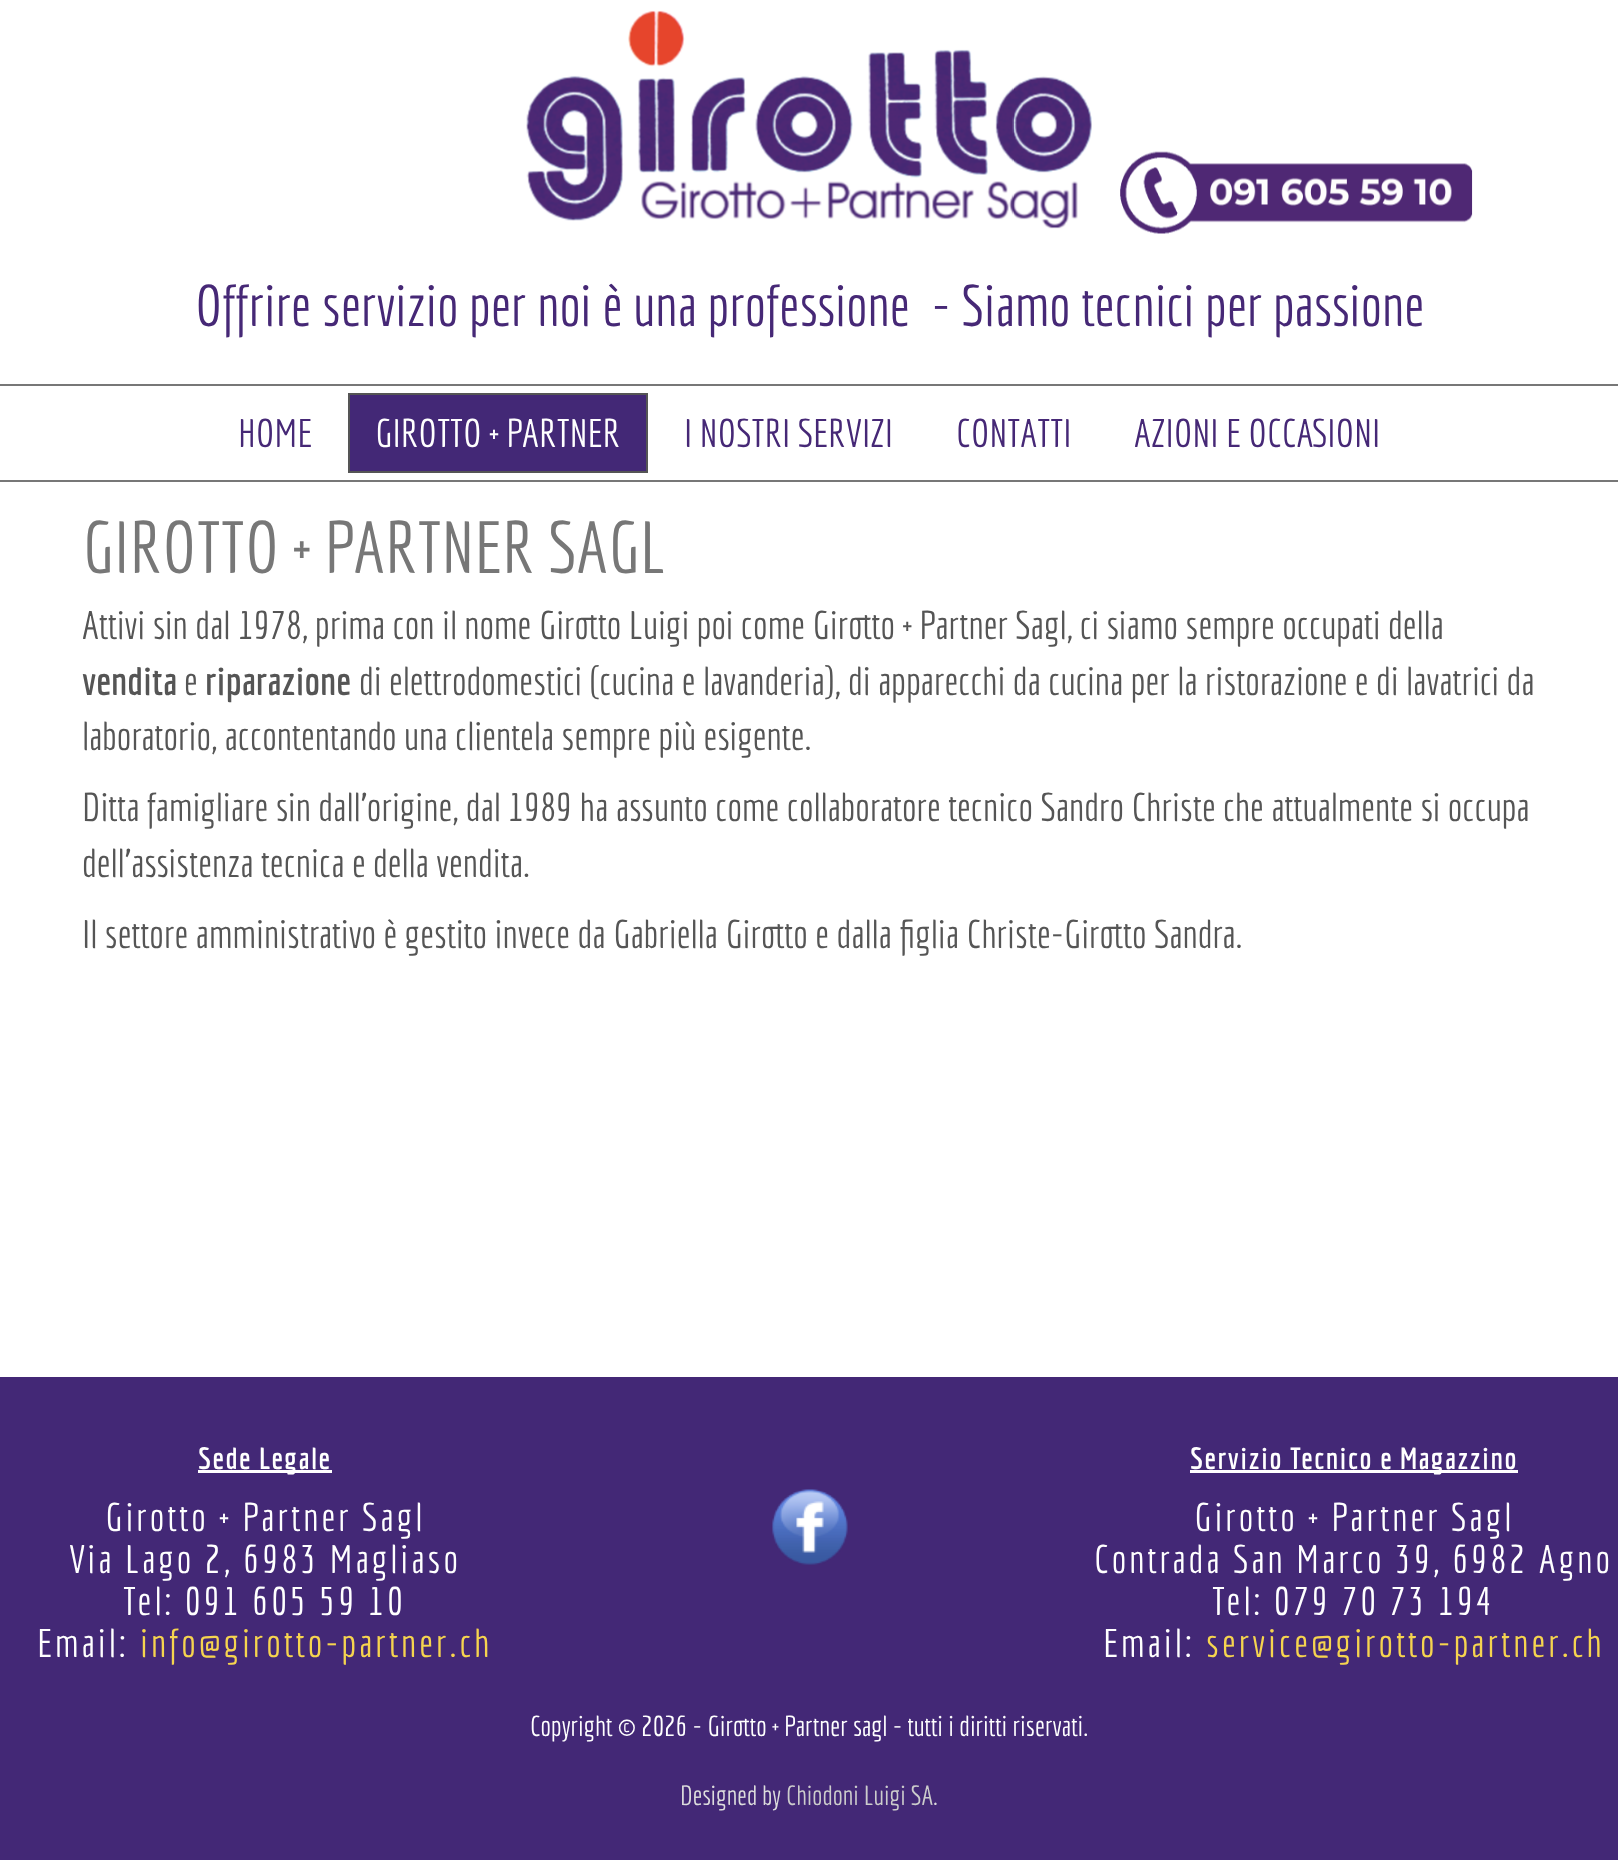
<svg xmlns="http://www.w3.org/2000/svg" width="1618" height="1860">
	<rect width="100%" height="100%" fill="#FFFFFF" />
	<image x="526" y="10" width="566" height="219" href="assets/img1.png" />
	<image x="1120" y="151" width="353" height="83" href="assets/img2.png" />
	<text x="195" y="326" font-family="Economica" font-size="57" fill="#462876" xml:space="preserve">Offrire servizio per noi è una professione  - Siamo tecnici per passione</text>
	<rect x="0" y="384" width="1618" height="2" fill="#777777" />
	<rect x="0" y="480" width="1618" height="2" fill="#777777" />
	<text x="238" y="447" font-family="Economica" font-size="39" fill="#462876">HOME</text>
	<rect x="349" y="394" width="298" height="78" fill="#432876" stroke="#555555" stroke-width="2" />
	<text x="375" y="447" font-family="Economica" font-size="39" fill="#FFFFFF">GIROTTO + PARTNER</text>
	<g font-family="Economica" font-size="39" fill="#462876">
		<text x="684" y="447">I NOSTRI SERVIZI</text>
		<text x="956" y="447">CONTATTI</text>
		<text x="1134" y="447">AZIONI E OCCASIONI</text>
	</g>
	<text x="82" y="573" font-family="Economica" font-size="72" fill="#777777">GIROTTO + PARTNER SAGL</text>
	<text x="82" y="639" font-family="Economica" font-size="39" fill="#555555">Attivi sin dal 1978, prima con il nome Girotto Luigi poi come Girotto + Partner Sagl, ci siamo sempre occupati della</text>
	<text x="82" y="695" font-family="Economica" font-size="39" font-weight="700" fill="#555555">vendita</text>
	<text x="184" y="695" font-family="Economica" font-size="39" fill="#555555">e</text>
	<text x="205" y="695" font-family="Economica" font-size="39" font-weight="700" fill="#555555">riparazione</text>
	<g font-family="Economica" font-size="39" fill="#555555">
		<text x="359" y="695">di elettrodomestici (cucina e lavanderia), di apparecchi da cucina per la ristorazione e di lavatrici da</text>
		<text x="82" y="750">laboratorio, accontentando una clientela sempre più esigente.</text>
		<text x="82" y="821">Ditta famigliare sin dall'origine, dal 1989 ha assunto come collaboratore tecnico Sandro Christe che attualmente si occupa</text>
		<text x="82" y="877">dell'assistenza tecnica e della vendita.</text>
		<text x="82" y="948">Il settore amministrativo è gestito invece da Gabriella Girotto e dalla figlia Christe-Girotto Sandra.</text>
	</g>
	<rect x="0" y="1377" width="1618" height="483" fill="#432876" />
	<rect x="198" y="1470" width="134" height="3" fill="#FFFFFF" />
	<text x="198" y="1469" font-family="Economica" font-size="30" font-weight="700" letter-spacing="1.5" fill="#FFFFFF">Sede Legale</text>
	<g font-family="Economica" font-size="39" letter-spacing="3" fill="#FFFFFF">
		<text x="105" y="1531">Girotto + Partner Sagl</text>
		<text x="69" y="1573">Via Lago 2, 6983 Magliaso</text>
		<text x="123" y="1615">Tel: 091 605 59 10</text>
		<text x="37" y="1657">Email:</text>
	</g>
	<text x="140" y="1657" font-family="Economica" font-size="39" letter-spacing="3" fill="#F6D44F">info@girotto-partner.ch</text>
	<image x="772" y="1489" width="76" height="76" href="assets/img3.png" />
	<rect x="1190" y="1470" width="328" height="3" fill="#FFFFFF" />
	<text x="1190" y="1469" font-family="Economica" font-size="30" font-weight="700" letter-spacing="1.5" fill="#FFFFFF">Servizio Tecnico e Magazzino</text>
	<g font-family="Economica" font-size="39" letter-spacing="3" fill="#FFFFFF">
		<text x="1194" y="1531">Girotto + Partner Sagl</text>
		<text x="1094" y="1573">Contrada San Marco 39, 6982 Agno</text>
		<text x="1212" y="1615">Tel: 079 70 73 194</text>
		<text x="1103" y="1657">Email:</text>
	</g>
	<text x="1206" y="1657" font-family="Economica" font-size="39" letter-spacing="3" fill="#F6D44F">service@girotto-partner.ch</text>
	<text x="530" y="1736" font-family="Economica" font-size="28" fill="#FFFFFF">Copyright © 2026 - Girotto + Partner sagl - tutti i diritti riservati.</text>
	<text x="680" y="1805" font-family="Economica" font-size="27" fill="#DDDDDD">Designed by</text>
	<text x="786" y="1805" font-family="Economica" font-size="27" fill="#CCCCCC">Chiodoni Luigi SA</text>
	<text x="933" y="1805" font-family="Economica" font-size="27" fill="#DDDDDD">.</text>
</svg>
